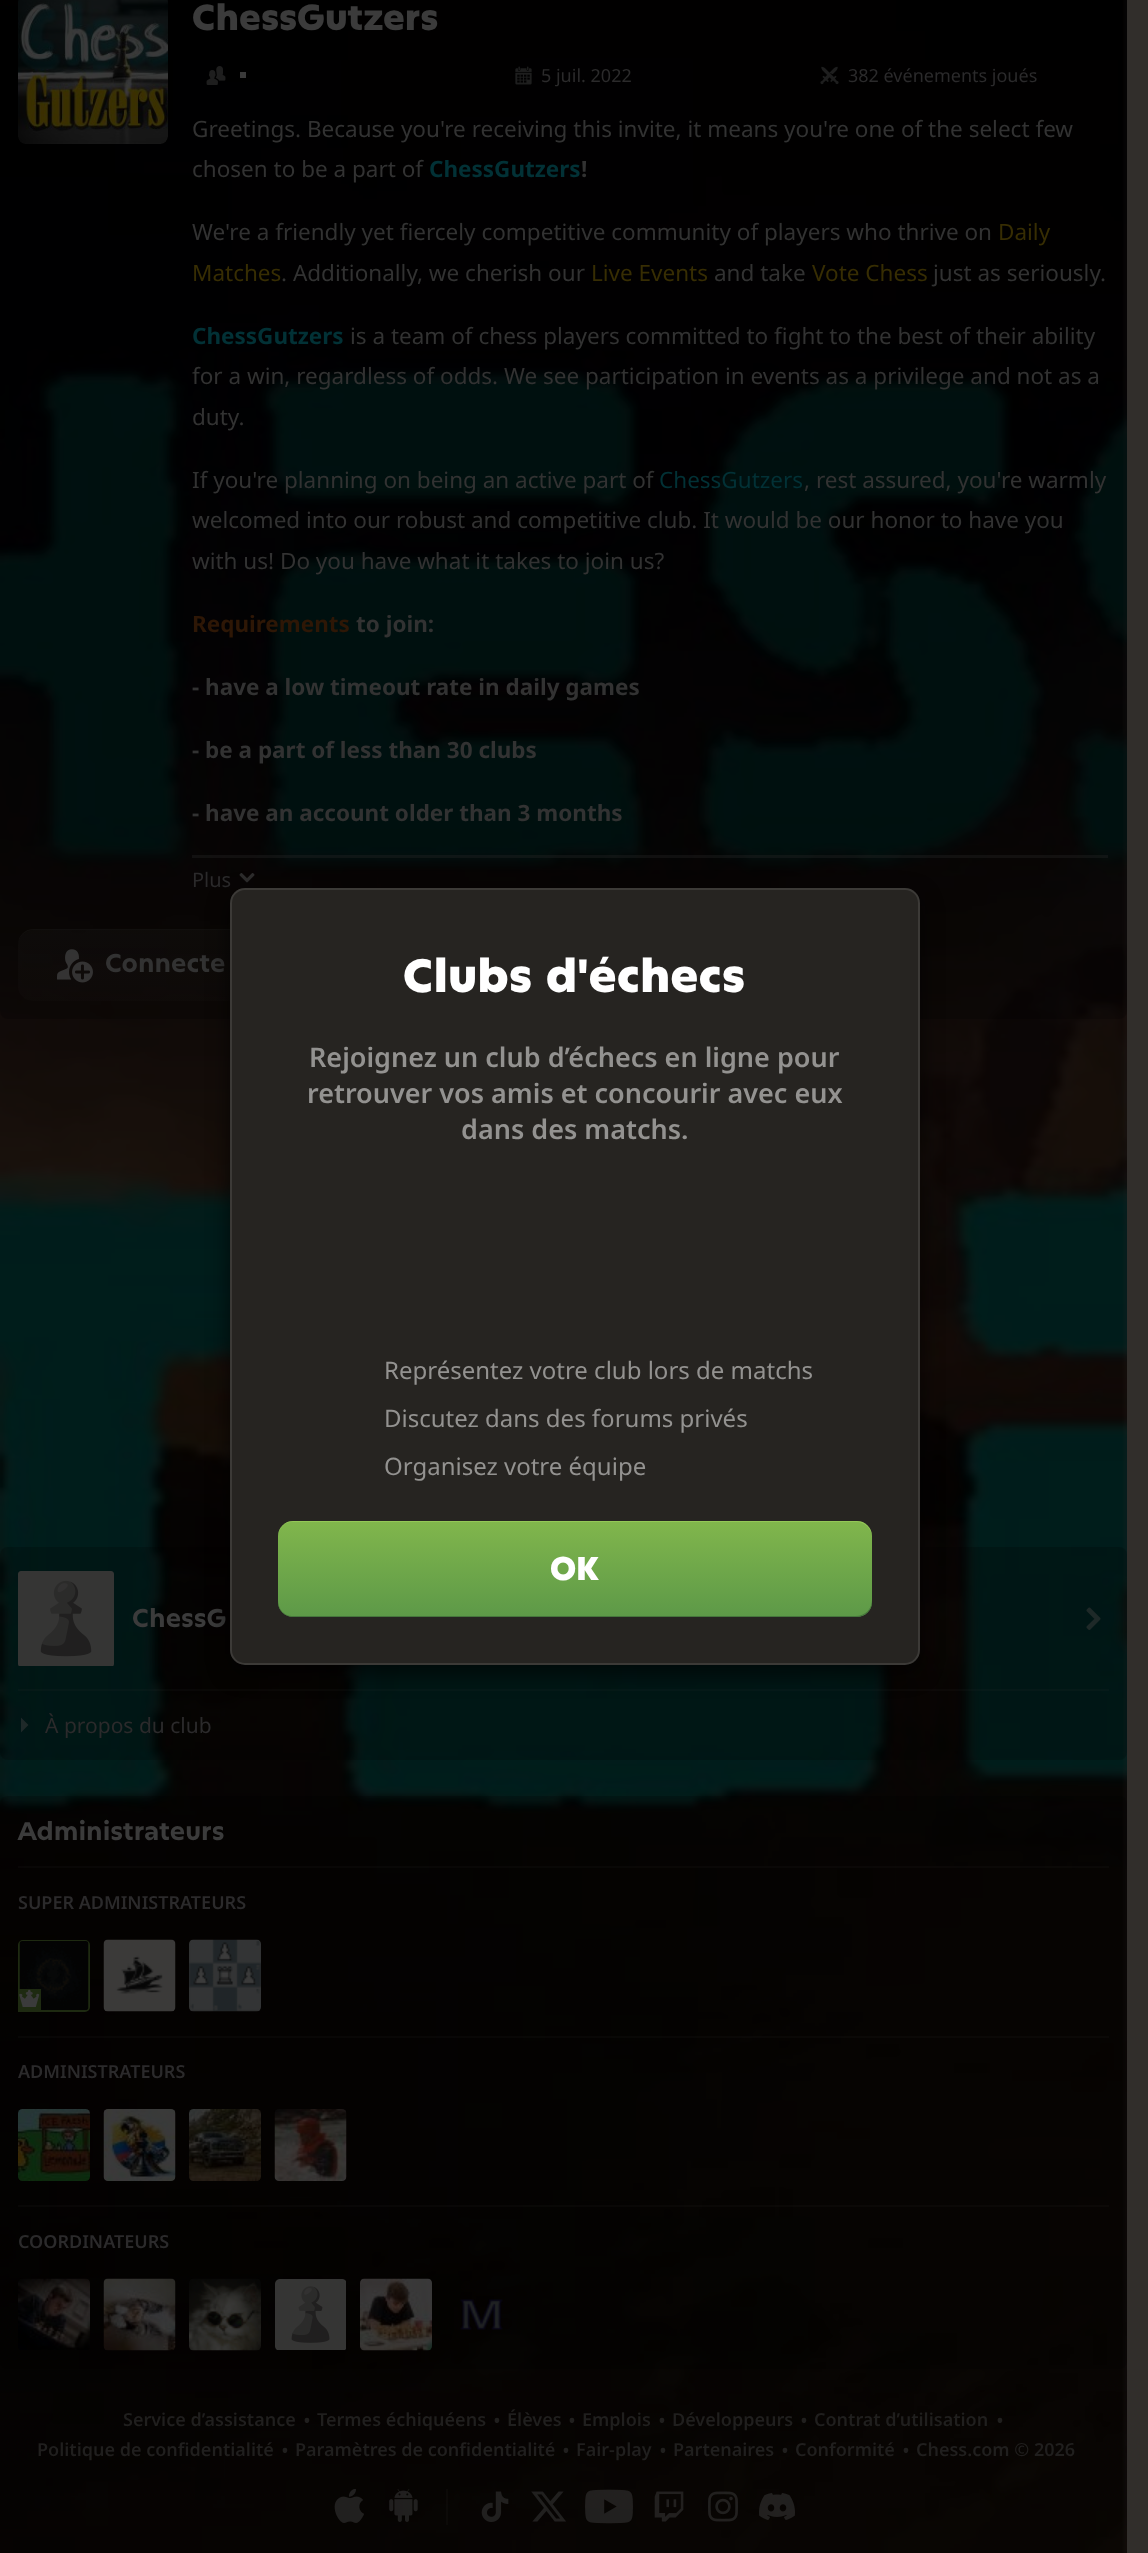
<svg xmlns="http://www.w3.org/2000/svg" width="1148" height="2553">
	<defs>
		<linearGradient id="g1" gradientUnits="userSpaceOnUse" x1="282" y1="929" x2="282" y2="1001"><stop offset="0" stop-color="#3B3B3B" stop-opacity="0.1" /><stop offset="1" stop-color="#3B3B3B" stop-opacity="0.05" /></linearGradient>
		<linearGradient id="g2" gradientUnits="userSpaceOnUse" x1="575" y1="1521" x2="575" y2="1617"><stop offset="0" stop-color="#81B64C" /><stop offset="1" stop-color="#5D9948" /></linearGradient>
	</defs>
	<rect width="100%" height="100%" fill="#312E2B" />
	<image x="0" y="0" width="1127" height="2553" href="assets/img1.png" />
	<rect x="0" y="-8" width="1127" height="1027" rx="8" fill="#000000" fill-opacity="0.2" />
	<image x="18" y="0" width="150" height="144" href="assets/img2.png" />
	<text x="192" y="30" font-family="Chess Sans" font-size="36" font-weight="800" fill="#3B3B3B">ChessGutzers</text>
	<image x="206" y="66" width="20" height="19" href="assets/img3.png" />
	<rect x="240" y="72" width="6" height="6" fill="#3A3A3A" />
	<image x="515" y="66" width="17" height="19" href="assets/img4.png" />
	<text x="541" y="82" font-family="Noto Sans" font-size="18" fill="#2B2A2B">5 juil. 2022</text>
	<image x="820" y="66" width="19" height="19" href="assets/img5.png" />
	<text x="848" y="82" font-family="Noto Sans" font-size="18" fill="#2B2A2B">382 événements joués</text>
	<g font-family="Noto Sans" font-size="22.5" fill="#323232">
		<text x="192" y="137">Greetings. Because you're receiving this invite, it means you're one of the select few</text>
		<text x="192" y="177">chosen to be a part of</text>
	</g>
	<text x="429" y="177" font-family="Noto Sans" font-size="22.5" font-weight="700" fill="#023136">ChessGutzers</text>
	<text x="581" y="177" font-family="Noto Sans" font-size="22.5" font-weight="700" fill="#323232">!</text>
	<text x="192" y="240" font-family="Noto Sans" font-size="22.5" fill="#323232">We're a friendly yet fiercely competitive community of players who thrive on</text>
	<g font-family="Noto Sans" font-size="22.5" fill="#372D03">
		<text x="998" y="240">Daily</text>
		<text x="192" y="281">Matches</text>
	</g>
	<text x="281" y="281" font-family="Noto Sans" font-size="22.5" fill="#323232">. Additionally, we cherish our</text>
	<text x="591" y="281" font-family="Noto Sans" font-size="22.5" fill="#372D03">Live Events</text>
	<text x="714" y="281" font-family="Noto Sans" font-size="22.5" fill="#323232">and take</text>
	<text x="812" y="281" font-family="Noto Sans" font-size="22.5" fill="#372D03">Vote Chess</text>
	<text x="933" y="281" font-family="Noto Sans" font-size="22.5" fill="#323232">just as seriously.</text>
	<text x="192" y="344" font-family="Noto Sans" font-size="22.5" font-weight="700" fill="#023136">ChessGutzers</text>
	<g font-family="Noto Sans" font-size="22.5" fill="#323232">
		<text x="350" y="344">is a team of chess players committed to fight to the best of their ability</text>
		<text x="192" y="384">for a win, regardless of odds. We see participation in events as a privilege and not as a</text>
		<text x="192" y="425">duty.</text>
		<text x="192" y="488">If you're planning on being an active part of</text>
	</g>
	<text x="659" y="488" font-family="Noto Sans" font-size="22.5" fill="#023136">ChessGutzers</text>
	<g font-family="Noto Sans" font-size="22.5" fill="#323232">
		<text x="804" y="488">, rest assured, you're warmly</text>
		<text x="192" y="528">welcomed into our robust and competitive club. It would be our honor to have you</text>
		<text x="192" y="569">with us! Do you have what it takes to join us?</text>
	</g>
	<text x="192" y="632" font-family="Noto Sans" font-size="22.5" font-weight="700" fill="#2E1706">Requirements</text>
	<g font-family="Noto Sans" font-size="22.5" font-weight="700" fill="#323232">
		<text x="356" y="632">to join:</text>
		<text x="192" y="695">- have a low timeout rate in daily games</text>
		<text x="192" y="758">- be a part of less than 30 clubs</text>
		<text x="192" y="821">- have an account older than 3 months</text>
	</g>
	<rect x="192" y="855" width="916" height="3" fill="#282828" fill-opacity="0.35" />
	<text x="192" y="887" font-family="Noto Sans" font-size="20" fill="#2B2A2B">Plus</text>
	<image x="239" y="873" width="16" height="10" href="assets/img6.png" />
	<rect x="18" y="929" width="528" height="72" rx="15" fill="url(#g1)" />
	<path d="M33 930H531C539 930 546 937 546 945V944C546 936 539 929 531 929H33C25 929 18 936 18 944V945C18 937 25 930 33 930Z" fill="#3B3B3B" fill-opacity="0.08" />
	<image x="57" y="949" width="36" height="34" href="assets/img7.png" />
	<text x="105" y="972" font-family="Chess Sans" font-size="25.5" font-weight="700" fill="#323232">Connecte</text>
	<rect x="0" y="1547" width="1127" height="213" rx="8" fill="#000000" fill-opacity="0.2" />
	<image x="18" y="1571" width="96" height="95" href="assets/img8.png" />
	<text x="132" y="1627" font-family="Chess Sans" font-size="25.5" font-weight="700" fill="#3B3B3B">ChessG</text>
	<image x="1086" y="1607" width="15" height="23" href="assets/img9.png" />
	<rect x="18" y="1689" width="1091" height="2" fill="#3B3B3B" fill-opacity="0.1" />
	<path d="M21 1732.5V1717.5L28.5 1725Z" fill="#3B3B3B" fill-opacity="0.5" />
	<text x="45" y="1733" font-family="Noto Sans" font-size="21" fill="#2B2A2B">À propos du club</text>
	<rect x="0" y="1796" width="1127" height="573" rx="8" fill="#000000" fill-opacity="0.2" />
	<text x="18" y="1840" font-family="Chess Sans" font-size="25.5" font-weight="700" fill="#3B3B3B">Administrateurs</text>
	<rect x="18" y="1866" width="1091" height="2" fill="#3B3B3B" fill-opacity="0.1" />
	<text x="18" y="1909" font-family="Noto Sans" font-size="18" font-weight="600" fill="#2B2A2B">SUPER ADMINISTRATEURS</text>
	<rect x="19" y="1941" width="70" height="70" rx="4" fill="none" stroke="#1E2A11" stroke-width="2" />
	<image x="19" y="1941" width="70" height="69" href="assets/img10.png" />
	<rect x="18" y="1989" width="23" height="23" fill="#1E2A11" />
	<image x="19" y="1989" width="21" height="18" href="assets/img11.png" />
	<image x="103" y="1939" width="73" height="73" href="assets/img12.png" />
	<image x="189" y="1939" width="72" height="73" href="assets/img13.png" />
	<rect x="18" y="2036" width="1091" height="2" fill="#3B3B3B" fill-opacity="0.1" />
	<text x="18" y="2078" font-family="Noto Sans" font-size="18" font-weight="600" fill="#2B2A2B">ADMINISTRATEURS</text>
	<image x="18" y="2109" width="72" height="72" href="assets/img14.png" />
	<image x="103" y="2109" width="73" height="72" href="assets/img15.png" />
	<image x="189" y="2109" width="72" height="72" href="assets/img16.png" />
	<image x="274" y="2109" width="73" height="72" href="assets/img17.png" />
	<rect x="18" y="2205" width="1091" height="2" fill="#3B3B3B" fill-opacity="0.1" />
	<text x="18" y="2248" font-family="Noto Sans" font-size="18" font-weight="600" fill="#2B2A2B">COORDINATEURS</text>
	<image x="18" y="2278" width="72" height="72" href="assets/img18.png" />
	<image x="103" y="2278" width="73" height="73" href="assets/img19.png" />
	<image x="189" y="2278" width="72" height="73" href="assets/img20.png" />
	<image x="275" y="2279" width="71" height="71" href="assets/img21.png" />
	<image x="360" y="2278" width="72" height="73" href="assets/img22.png" />
	<image x="460" y="2299" width="43" height="31" href="assets/img23.png" />
	<text x="123" y="2426" font-family="Noto Sans" font-size="18" font-weight="600" fill="#201F1E">Service d’assistance</text>
	<text x="303" y="2428" font-family="Noto Sans" font-size="21" fill="#201F1E">•</text>
	<text x="317" y="2426" font-family="Noto Sans" font-size="18" font-weight="600" fill="#201F1E">Termes échiquéens</text>
	<text x="493" y="2428" font-family="Noto Sans" font-size="21" fill="#201F1E">•</text>
	<text x="507" y="2426" font-family="Noto Sans" font-size="18" font-weight="600" fill="#201F1E">Élèves</text>
	<text x="568" y="2428" font-family="Noto Sans" font-size="21" fill="#201F1E">•</text>
	<text x="582" y="2426" font-family="Noto Sans" font-size="18" font-weight="600" fill="#201F1E">Emplois</text>
	<text x="658" y="2428" font-family="Noto Sans" font-size="21" fill="#201F1E">•</text>
	<text x="672" y="2426" font-family="Noto Sans" font-size="18" font-weight="600" fill="#201F1E">Développeurs</text>
	<text x="800" y="2428" font-family="Noto Sans" font-size="21" fill="#201F1E">•</text>
	<text x="814" y="2426" font-family="Noto Sans" font-size="18" font-weight="600" fill="#201F1E">Contrat d’utilisation</text>
	<text x="996" y="2428" font-family="Noto Sans" font-size="21" fill="#201F1E">•</text>
	<text x="37" y="2456" font-family="Noto Sans" font-size="18" font-weight="600" fill="#201F1E">Politique de confidentialité</text>
	<text x="281" y="2458" font-family="Noto Sans" font-size="21" fill="#201F1E">•</text>
	<text x="295" y="2456" font-family="Noto Sans" font-size="18" font-weight="600" fill="#201F1E">Paramètres de confidentialité</text>
	<text x="562" y="2458" font-family="Noto Sans" font-size="21" fill="#201F1E">•</text>
	<text x="576" y="2456" font-family="Noto Sans" font-size="18" font-weight="600" fill="#201F1E">Fair-play</text>
	<text x="659" y="2458" font-family="Noto Sans" font-size="21" fill="#201F1E">•</text>
	<text x="673" y="2456" font-family="Noto Sans" font-size="18" font-weight="600" fill="#201F1E">Partenaires</text>
	<text x="781" y="2458" font-family="Noto Sans" font-size="21" fill="#201F1E">•</text>
	<text x="795" y="2456" font-family="Noto Sans" font-size="18" font-weight="600" fill="#201F1E">Conformité</text>
	<text x="902" y="2458" font-family="Noto Sans" font-size="21" fill="#201F1E">•</text>
	<text x="916" y="2456" font-family="Noto Sans" font-size="18" font-weight="600" fill="#201F1E">Chess.com © 2026</text>
	<image x="334" y="2489" width="31" height="34" href="assets/img24.png" />
	<rect x="446" y="2489" width="2" height="36" fill="#3B3B3B" fill-opacity="0.1" />
	<image x="389" y="2489" width="29" height="33" href="assets/img25.png" />
	<image x="481" y="2491" width="28" height="31" href="assets/img26.png" />
	<image x="531" y="2491" width="35" height="31" href="assets/img27.png" />
	<image x="585" y="2489" width="48" height="35" href="assets/img28.png" />
	<image x="654" y="2491" width="30" height="31" href="assets/img29.png" />
	<image x="708" y="2491" width="30" height="31" href="assets/img30.png" />
	<image x="759" y="2492" width="36" height="28" href="assets/img31.png" />
	<rect x="230" y="896" width="690" height="777" rx="15" fill="#000000" fill-opacity="0.65" filter="blur(11px)" />
	<rect x="230" y="888" width="690" height="777" rx="15" fill="#262421" />
	<rect x="231" y="889" width="688" height="775" rx="14" fill="none" stroke="#FFFFFF" stroke-opacity="0.1" stroke-width="2" />
	<text x="403" y="992" font-family="Chess Sans" font-size="46.5" font-weight="800" fill="#FFFFFF">Clubs d'échecs</text>
	<g font-family="Noto Sans" font-size="27" font-weight="600" fill="#939290">
		<text x="309" y="1067">Rejoignez un club d’échecs en ligne pour</text>
		<text x="307" y="1103">retrouver vos amis et concourir avec eux</text>
		<text x="461" y="1139">dans des matchs.</text>
	</g>
	<g font-family="Noto Sans" font-size="24" fill="#939290">
		<text x="384" y="1379">Représentez votre club lors de matchs</text>
		<text x="384" y="1427">Discutez dans des forums privés</text>
		<text x="384" y="1475">Organisez votre équipe</text>
	</g>
	<rect x="278" y="1521" width="594" height="96" rx="15" fill="url(#g2)" />
	<path d="M278 1600V1602C278 1610 285 1617 293 1617H857C865 1617 872 1610 872 1602V1600C872 1609 865 1616 856 1616H292C284 1616 278 1609 278 1600Z" fill="#45753C" />
	<path d="M292 1522H856C865 1522 872 1529 872 1538V1536C872 1528 865 1521 857 1521H293C285 1521 278 1528 278 1536V1538C278 1529 284 1522 292 1522Z" fill="#B2E068" fill-opacity="0.4" />
	<text x="550" y="1580" font-family="Chess Sans" font-size="33" font-weight="800" fill="#FFFFFF">OK</text>
</svg>
